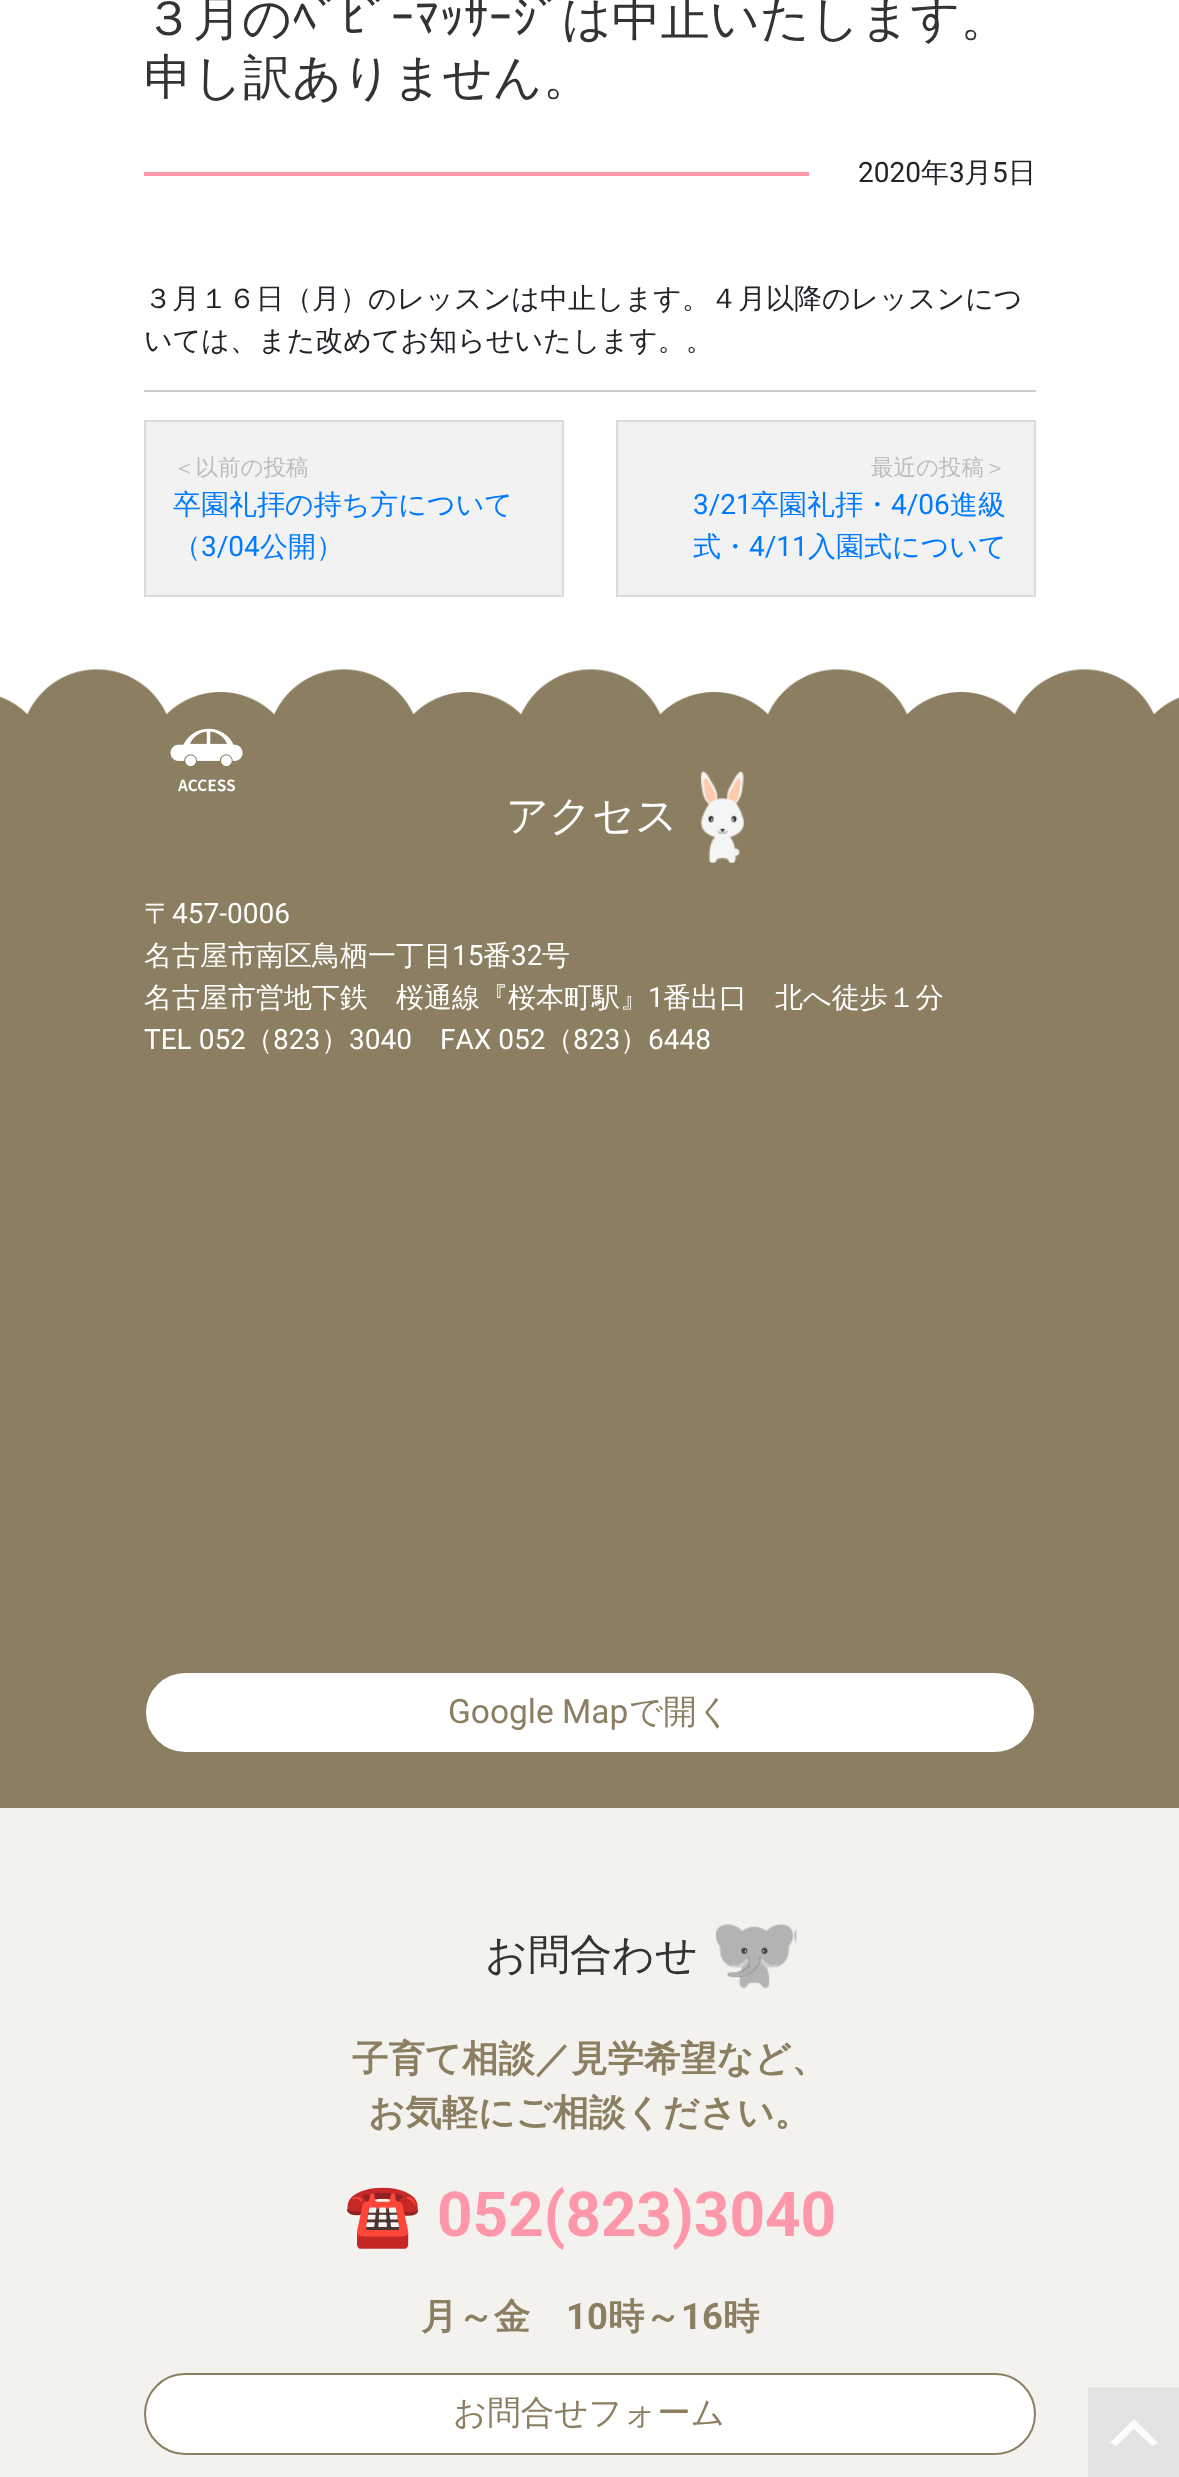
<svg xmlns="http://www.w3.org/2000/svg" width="1179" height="2477">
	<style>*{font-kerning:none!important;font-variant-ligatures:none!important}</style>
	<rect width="100%" height="100%" fill="#FFFFFF" />
	<g font-family="Noto Sans" font-size="49" font-weight="300" fill="#333333">
		<text x="144" y="35">３月のﾍﾞﾋﾞｰﾏｯｻｰｼﾞは中止いたします。</text>
		<text x="144" y="94">申し訳ありません。</text>
	</g>
	<rect x="144" y="172" width="665" height="4" fill="#FD97A9" />
	<text x="858" y="182" font-family="Roboto" font-size="28" fill="#212529">2020</text>
	<text x="921" y="182" font-family="WenQuanYi Zen Hei" font-size="28" font-weight="500" fill="#212529">年</text>
	<text x="949" y="182" font-family="Roboto" font-size="28" fill="#212529">3</text>
	<text x="964" y="182" font-family="WenQuanYi Zen Hei" font-size="28" font-weight="500" fill="#212529">月</text>
	<text x="992" y="182" font-family="Roboto" font-size="28" fill="#212529">5</text>
	<g font-family="WenQuanYi Zen Hei" font-size="28" font-weight="500" fill="#212529">
		<text x="1008" y="182">日</text>
		<text x="144" y="308">３月１６日（月）のレッスンは中止します。４月以降のレッスンにつ</text>
		<text x="144" y="350">いては、また改めてお知らせいたします。。</text>
	</g>
	<rect x="144" y="390" width="892" height="2" fill="#CCCCCC" />
	<rect x="145" y="421" width="418" height="175" fill="#F2F2F2" stroke="#DADADA" stroke-width="2" />
	<text x="173" y="475" font-family="WenQuanYi Zen Hei" font-size="22.5" font-weight="500" fill="#BCBCBC">＜以前の投稿</text>
	<g font-family="WenQuanYi Zen Hei" font-size="28" font-weight="500" fill="#007BFF">
		<text x="173" y="514">卒園礼拝の持ち方について</text>
		<text x="173" y="556">（</text>
	</g>
	<text x="201" y="556" font-family="Roboto" font-size="28" fill="#007BFF">3/04</text>
	<text x="260" y="556" font-family="WenQuanYi Zen Hei" font-size="28" font-weight="500" fill="#007BFF">公開）</text>
	<rect x="617" y="421" width="418" height="175" fill="#F2F2F2" stroke="#DADADA" stroke-width="2" />
	<text x="871" y="475" font-family="WenQuanYi Zen Hei" font-size="22.5" font-weight="500" fill="#BCBCBC">最近の投稿＞</text>
	<text x="693" y="514" font-family="Roboto" font-size="28" fill="#007BFF">3/21</text>
	<text x="751" y="514" font-family="WenQuanYi Zen Hei" font-size="28" font-weight="500" fill="#007BFF">卒園礼拝・</text>
	<text x="891" y="514" font-family="Roboto" font-size="28" fill="#007BFF">4/06</text>
	<g font-family="WenQuanYi Zen Hei" font-size="28" font-weight="500" fill="#007BFF">
		<text x="950" y="514">進級</text>
		<text x="693" y="556">式・</text>
	</g>
	<text x="749" y="556" font-family="Roboto" font-size="28" fill="#007BFF">4/11</text>
	<text x="808" y="556" font-family="WenQuanYi Zen Hei" font-size="28" font-weight="500" fill="#007BFF">入園式について</text>
	<rect x="0" y="715" width="1179" height="1093" fill="#8B7E61" />
	<image x="0" y="669" width="1179" height="46" href="assets/img1.png" />
	<image x="170" y="728" width="73" height="64" href="assets/img2.png" />
	<text x="506" y="830" font-family="Noto Sans" font-size="42" font-weight="300" fill="#FFFFFF">アクセス</text>
	<image x="700" y="771" width="45" height="92" href="assets/img3.png" />
	<text x="144" y="923" font-family="WenQuanYi Zen Hei" font-size="28" font-weight="500" fill="#FFFFFF">〒</text>
	<text x="172" y="923" font-family="Roboto" font-size="28" fill="#FFFFFF">457-0006</text>
	<text x="144" y="965" font-family="WenQuanYi Zen Hei" font-size="28" font-weight="500" fill="#FFFFFF">名古屋市南区鳥栖一丁目</text>
	<text x="452" y="965" font-family="Roboto" font-size="28" fill="#FFFFFF">15</text>
	<text x="483" y="965" font-family="WenQuanYi Zen Hei" font-size="28" font-weight="500" fill="#FFFFFF">番</text>
	<text x="511" y="965" font-family="Roboto" font-size="28" fill="#FFFFFF">32</text>
	<g font-family="WenQuanYi Zen Hei" font-size="28" font-weight="500" fill="#FFFFFF">
		<text x="542" y="965">号</text>
		<text x="144" y="1007">名古屋市営地下鉄　桜通線『桜本町駅』</text>
	</g>
	<text x="648" y="1007" font-family="Roboto" font-size="28" fill="#FFFFFF">1</text>
	<text x="663" y="1007" font-family="WenQuanYi Zen Hei" font-size="28" font-weight="500" fill="#FFFFFF">番出口　北へ徒歩１分</text>
	<text x="144" y="1049" font-family="Roboto" font-size="28" fill="#FFFFFF">TEL 052</text>
	<text x="245" y="1049" font-family="WenQuanYi Zen Hei" font-size="28" font-weight="500" fill="#FFFFFF">（</text>
	<text x="273" y="1049" font-family="Roboto" font-size="28" fill="#FFFFFF">823</text>
	<text x="321" y="1049" font-family="WenQuanYi Zen Hei" font-size="28" font-weight="500" fill="#FFFFFF">）</text>
	<g font-family="Roboto" font-size="28" fill="#FFFFFF">
		<text x="349" y="1049">3040</text>
		<text x="440" y="1049">FAX 052</text>
	</g>
	<text x="545" y="1049" font-family="WenQuanYi Zen Hei" font-size="28" font-weight="500" fill="#FFFFFF">（</text>
	<text x="573" y="1049" font-family="Roboto" font-size="28" fill="#FFFFFF">823</text>
	<text x="620" y="1049" font-family="WenQuanYi Zen Hei" font-size="28" font-weight="500" fill="#FFFFFF">）</text>
	<text x="648" y="1049" font-family="Roboto" font-size="28" fill="#FFFFFF">6448</text>
	<rect x="145" y="1672" width="890" height="81" rx="40.5" fill="#FFFFFF" stroke="#8B7E61" stroke-width="2" />
	<text x="448" y="1723" font-family="Roboto" font-size="33.5" fill="#8B7E61">Google Map</text>
	<text x="629" y="1723" font-family="WenQuanYi Zen Hei" font-size="33.5" font-weight="500" fill="#8B7E61">で開く</text>
	<rect x="0" y="1808" width="1179" height="669" fill="#F3F2EF" />
	<text x="485" y="1969" font-family="Noto Sans" font-size="42" font-weight="300" fill="#333333">お問合わせ</text>
	<image x="715" y="1924" width="82" height="65" href="assets/img4.png" />
	<g font-family="WenQuanYi Zen Hei" font-size="36.4" font-weight="700" fill="#8B7E61">
		<text x="352" y="2071">子育て相談／見学希望など、</text>
		<text x="368" y="2125">お気軽にご相談ください。</text>
	</g>
	<text x="344" y="2236" font-family="Noto Color Emoji" font-size="62" font-weight="700" fill="#FD97A9">☎</text>
	<text x="437" y="2236" font-family="Roboto" font-size="62" font-weight="700" fill="#FD97A9">052(823)3040</text>
	<text x="421" y="2329" font-family="WenQuanYi Zen Hei" font-size="36.4" font-weight="700" fill="#8B7E61">月～金</text>
	<text x="566" y="2329" font-family="Roboto" font-size="36.4" font-weight="700" fill="#8B7E61">10</text>
	<text x="608" y="2329" font-family="WenQuanYi Zen Hei" font-size="36.4" font-weight="700" fill="#8B7E61">時～</text>
	<text x="681" y="2329" font-family="Roboto" font-size="36.4" font-weight="700" fill="#8B7E61">16</text>
	<text x="723" y="2329" font-family="WenQuanYi Zen Hei" font-size="36.4" font-weight="700" fill="#8B7E61">時</text>
	<rect x="145" y="2374" width="890" height="80" rx="40" fill="#FFFFFF" stroke="#8B7E61" stroke-width="2" />
	<text x="453" y="2424" font-family="WenQuanYi Zen Hei" font-size="33.5" font-weight="500" fill="#8B7E61">お問合せフォーム</text>
	<rect x="1088" y="2387" width="91" height="90" fill="#E3E3E1" />
	<path d="M1152 2446L1134 2429L1116 2446L1110 2443L1134 2419L1158 2443Z" fill="#FCFCFB" />
</svg>
